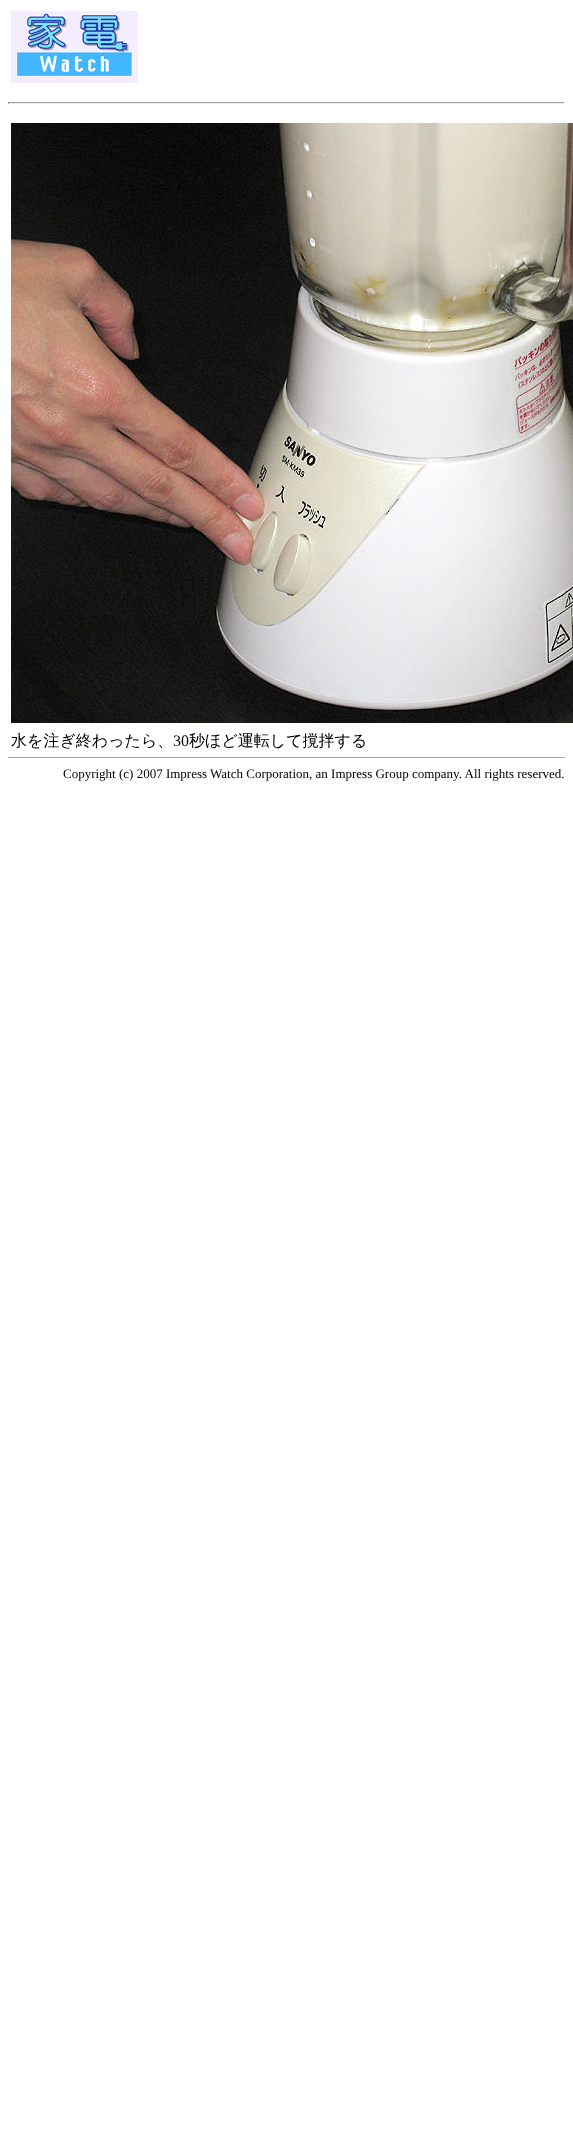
<svg xmlns="http://www.w3.org/2000/svg" width="573" height="2131">
	<rect width="100%" height="100%" fill="#FFFFFF" />
	<image x="11" y="11" width="127" height="72" href="assets/img1.png" />
	<rect x="8" y="102" width="557" height="1" fill="#9F9F9F" />
	<rect x="564" y="102" width="1" height="2" fill="#EEEEEE" />
	<rect x="8" y="103" width="557" height="1" fill="#EEEEEE" />
	<rect x="8" y="102" width="1" height="2" fill="#9F9F9F" />
	<image x="11" y="123" width="562" height="600" href="assets/img2.png" />
	<text x="11" y="746" font-family="WenQuanYi Zen Hei" font-size="16" font-weight="500" fill="#000000">水を注ぎ終わったら、</text>
	<text x="173" y="746" font-family="Liberation Serif" font-size="16" fill="#000000">30</text>
	<text x="189" y="746" font-family="WenQuanYi Zen Hei" font-size="16" font-weight="500" fill="#000000">秒ほど運転して撹拌する</text>
	<rect x="8" y="757" width="557" height="1" fill="#9999FF" />
	<text x="63" y="778" font-family="Liberation Serif" font-size="13" fill="#000000">Copyright (c) 2007 Impress Watch Corporation, an Impress Group company. All rights reserved.</text>
</svg>
